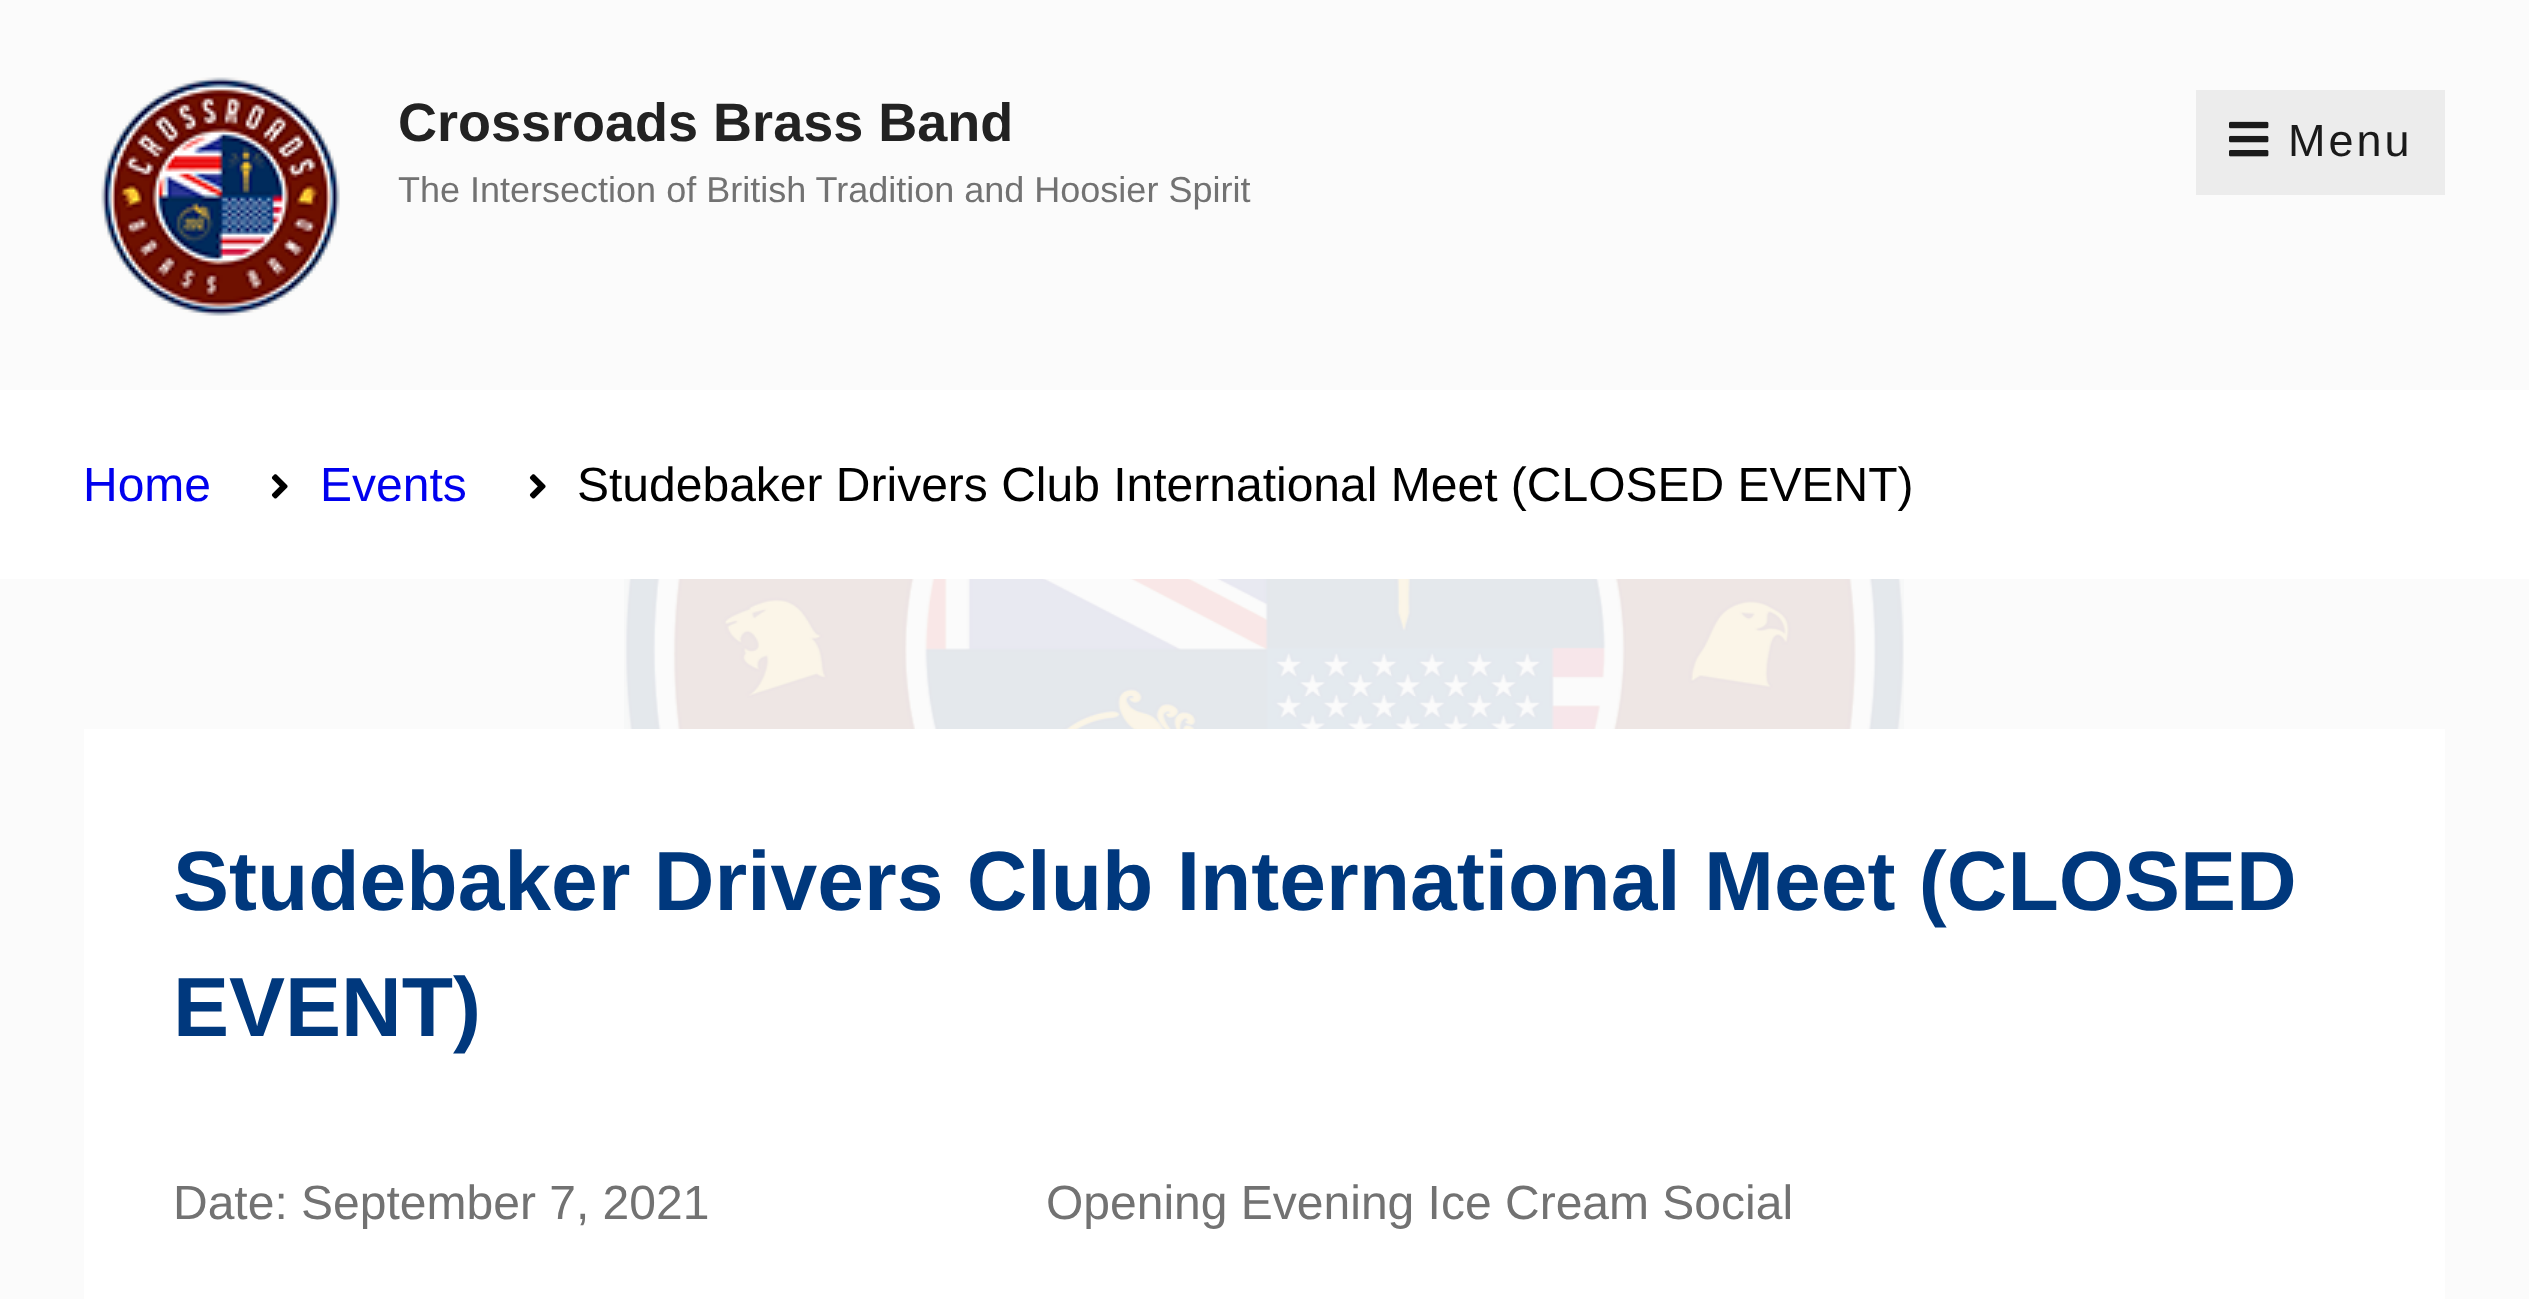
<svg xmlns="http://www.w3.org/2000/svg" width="2529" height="1299">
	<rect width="100%" height="100%" fill="#FBFBFB" />
	<image x="624" y="579" width="1280" height="150" href="assets/img1.png" />
	<image x="101" y="77" width="239" height="239" href="assets/img2.png" />
	<text x="398" y="141" font-family="Liberation Sans" font-size="54" font-weight="700" fill="#222222">Crossroads Brass Band</text>
	<text x="398" y="202" font-family="Liberation Sans" font-size="36" fill="#727272">The Intersection of British Tradition and Hoosier Spirit</text>
	<rect x="2196" y="90" width="249" height="105" fill="#ECECEC" />
	<image x="2229" y="121" width="40" height="36" href="assets/img3.png" />
	<text x="2288" y="156" font-family="Liberation Sans" font-size="45" letter-spacing="3" fill="#1A1A1A">Menu</text>
	<rect x="0" y="390" width="2529" height="189" fill="#FFFFFF" />
	<text x="83" y="501" font-family="Liberation Sans" font-size="48" fill="#0000EE">Home</text>
	<image x="271" y="474" width="17" height="25" href="assets/img4.png" />
	<text x="320" y="501" font-family="Liberation Sans" font-size="48" fill="#0000EE">Events</text>
	<image x="529" y="474" width="17" height="25" href="assets/img4.png" />
	<text x="577" y="501" font-family="Liberation Sans" font-size="48" fill="#000000">Studebaker Drivers Club International Meet (CLOSED EVENT)</text>
	<rect x="84" y="729" width="2361" height="570" fill="#FFFFFF" />
	<g font-family="Liberation Sans" font-size="84" font-weight="700" fill="#00387D">
		<text x="173" y="910">Studebaker Drivers Club International Meet (CLOSED</text>
		<text x="173" y="1036">EVENT)</text>
	</g>
	<g font-family="Liberation Sans" font-size="48" fill="#727272">
		<text x="173" y="1219">Date: September 7, 2021</text>
		<text x="1046" y="1219">Opening Evening Ice Cream Social</text>
	</g>
</svg>
